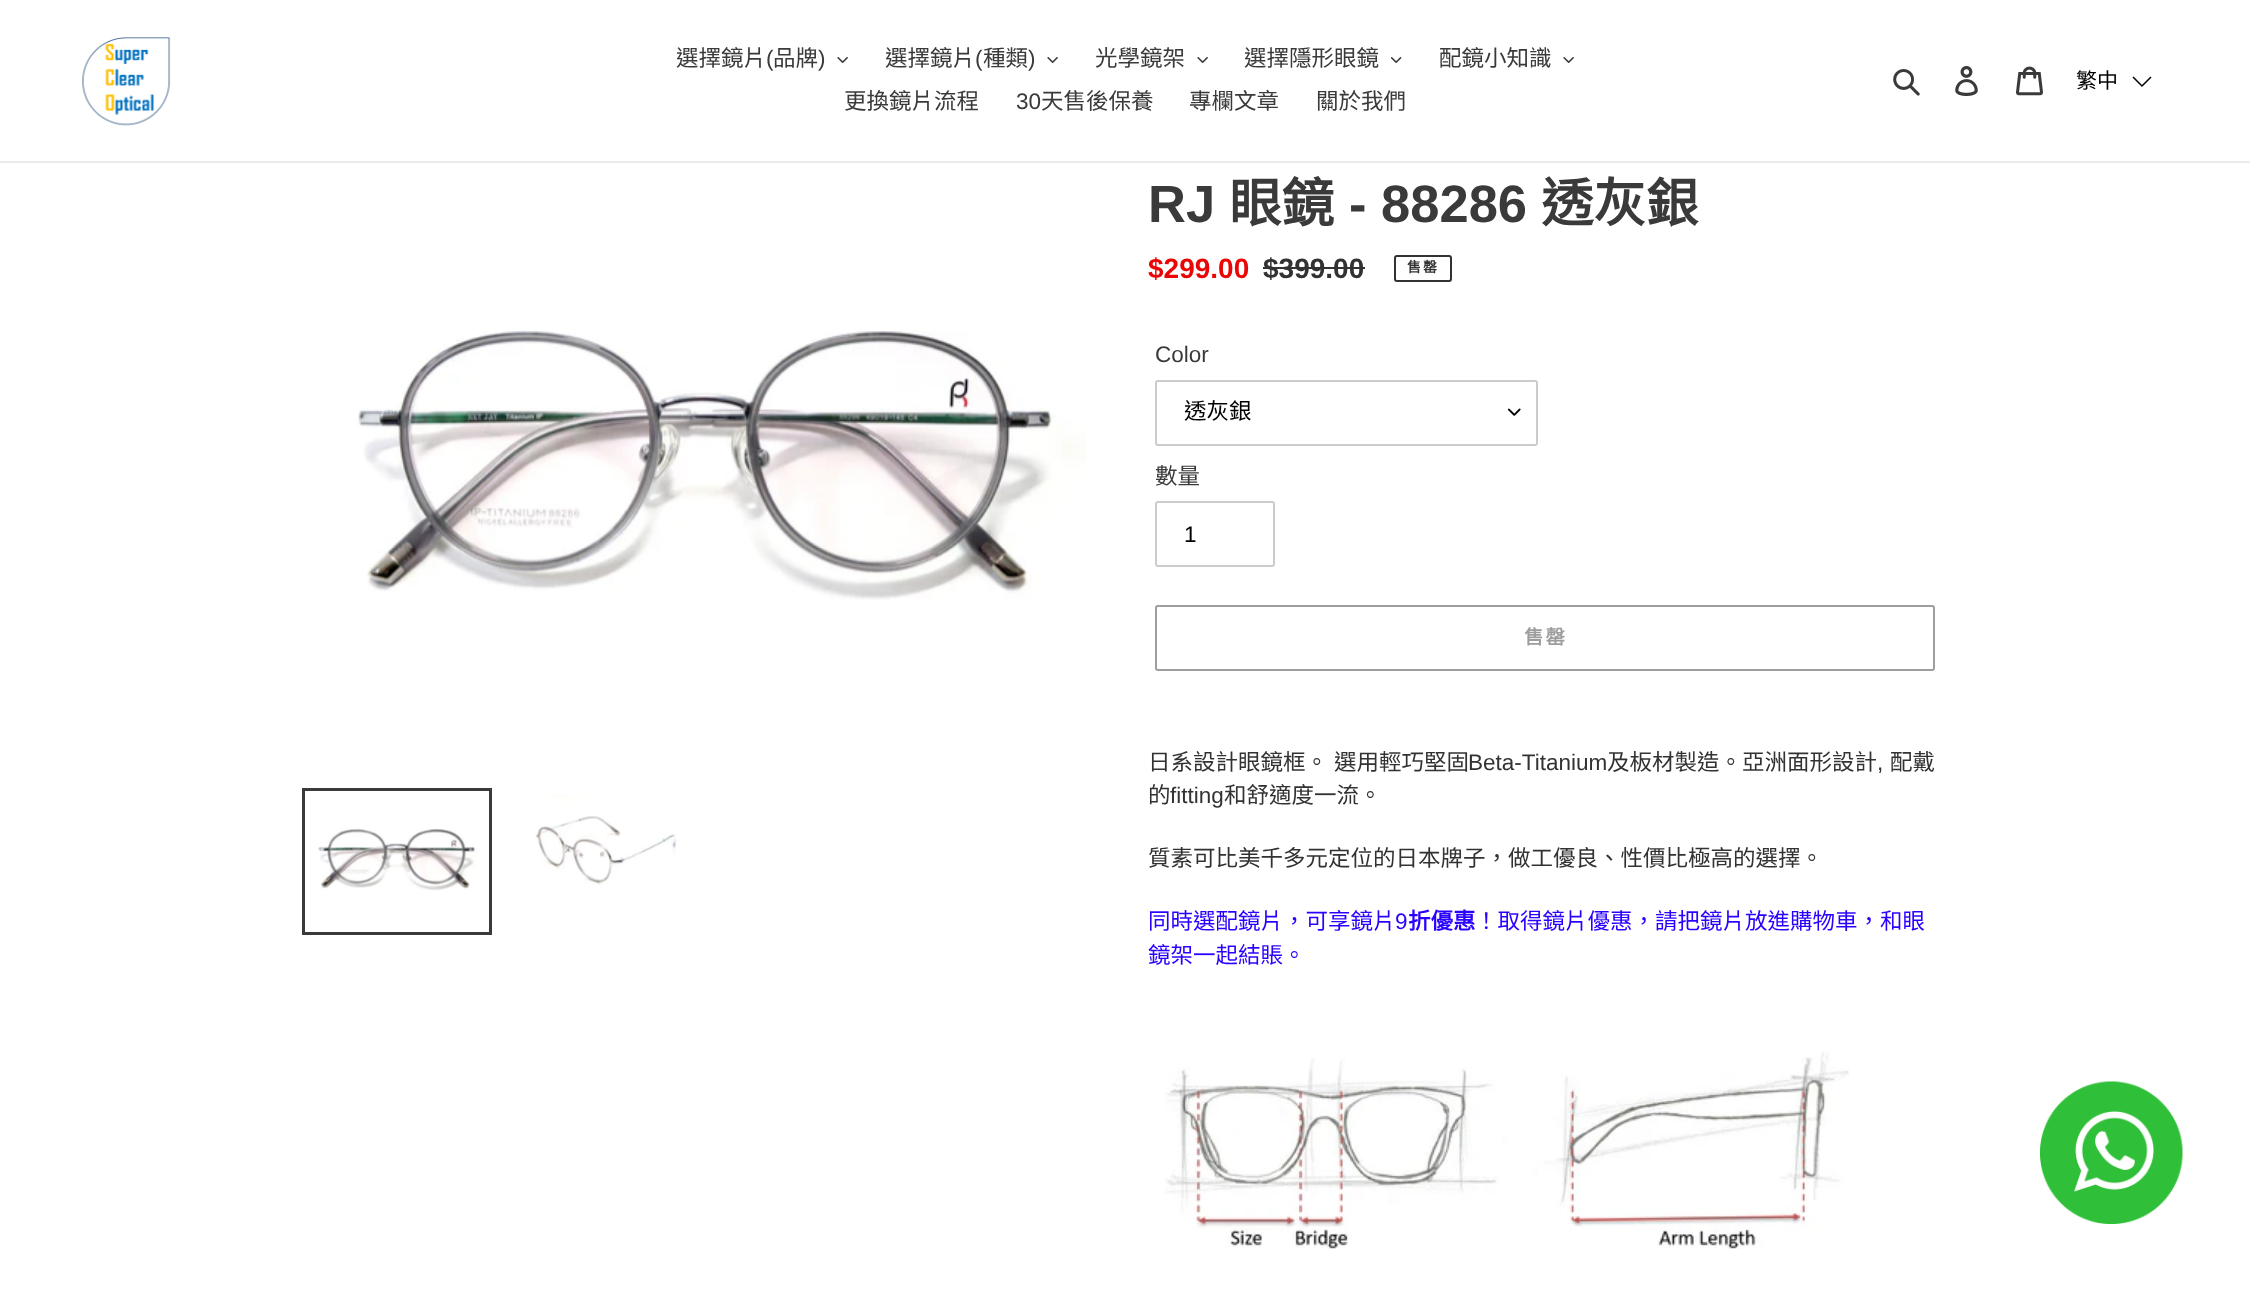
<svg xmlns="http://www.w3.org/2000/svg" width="2250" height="1291">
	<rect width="100%" height="100%" fill="#FFFFFF" />
	<rect x="0" y="161" width="2250" height="2" fill="#EBEBEB" />
	<image x="82" y="37" width="89" height="89" href="assets/img1.png" />
	<text x="676" y="66" font-family="Noto Sans CJK TC" font-size="22.5" fill="#3A3A3A">選擇鏡片</text>
	<text x="766" y="66" font-family="Liberation Sans" font-size="22.5" fill="#3A3A3A">(</text>
	<text x="773" y="66" font-family="Noto Sans CJK TC" font-size="22.5" fill="#3A3A3A">品牌</text>
	<text x="818" y="66" font-family="Liberation Sans" font-size="22.5" fill="#3A3A3A">)</text>
	<image x="837" y="57" width="11" height="6" href="assets/img2.png" />
	<text x="885" y="66" font-family="Noto Sans CJK TC" font-size="22.5" fill="#3A3A3A">選擇鏡片</text>
	<text x="975" y="66" font-family="Liberation Sans" font-size="22.5" fill="#3A3A3A">(</text>
	<text x="983" y="66" font-family="Noto Sans CJK TC" font-size="22.5" fill="#3A3A3A">種類</text>
	<text x="1028" y="66" font-family="Liberation Sans" font-size="22.5" fill="#3A3A3A">)</text>
	<image x="1047" y="57" width="11" height="6" href="assets/img2.png" />
	<text x="1095" y="66" font-family="Noto Sans CJK TC" font-size="22.5" fill="#3A3A3A">光學鏡架</text>
	<image x="1197" y="57" width="11" height="6" href="assets/img2.png" />
	<text x="1244" y="66" font-family="Noto Sans CJK TC" font-size="22.5" fill="#3A3A3A">選擇隱形眼鏡</text>
	<image x="1391" y="57" width="11" height="6" href="assets/img3.png" />
	<text x="1439" y="66" font-family="Noto Sans CJK TC" font-size="22.5" fill="#3A3A3A">配鏡小知識</text>
	<image x="1563" y="57" width="11" height="6" href="assets/img2.png" />
	<text x="844" y="109" font-family="Noto Sans CJK TC" font-size="22.5" fill="#3A3A3A">更換鏡片流程</text>
	<text x="1016" y="109" font-family="Liberation Sans" font-size="22.5" fill="#3A3A3A">30</text>
	<g font-family="Noto Sans CJK TC" font-size="22.5" fill="#3A3A3A">
		<text x="1041" y="109">天售後保養</text>
		<text x="1189" y="109">專欄文章</text>
		<text x="1316" y="109">關於我們</text>
	</g>
	<image x="1893" y="69" width="27" height="27" href="assets/img4.png" />
	<image x="1955" y="66" width="23" height="30" href="assets/img5.png" />
	<image x="2016" y="66" width="27" height="30" href="assets/img6.png" />
	<text x="2076" y="88" font-family="Noto Sans CJK TC" font-size="21" fill="#000000">繁中</text>
	<path d="M2133 77L2142 86L2151 77" fill="none" stroke="#000000" stroke-width="1.5" />
	<image x="357" y="330" width="729" height="270" href="assets/img7.png" />
	<rect x="303.5" y="789.5" width="187" height="144" fill="none" stroke="#3A3A3A" stroke-width="3" />
	<image x="318" y="828" width="159" height="63" href="assets/img8.png" />
	<image x="535" y="794" width="142" height="91" href="assets/img9.png" />
	<text x="1148" y="222" font-family="Liberation Sans" font-size="52.5" font-weight="700" fill="#3A3A3A">RJ</text>
	<text x="1229" y="222" font-family="Noto Sans CJK TC" font-size="52.5" font-weight="700" fill="#3A3A3A">眼鏡</text>
	<text x="1349" y="222" font-family="Liberation Sans" font-size="52.5" font-weight="700" fill="#3A3A3A">- 88286</text>
	<text x="1541" y="222" font-family="Noto Sans CJK TC" font-size="52.5" font-weight="700" fill="#3A3A3A">透灰銀</text>
	<text x="1148" y="278" font-family="Liberation Sans" font-size="28" font-weight="700" fill="#EA0606">$299.00</text>
	<text x="1263" y="278" font-family="Liberation Sans" font-size="28" font-weight="700" fill="#333232">$399.00</text>
	<rect x="1263" y="267" width="102" height="2" fill="#333232" />
	<rect x="1395" y="256" width="56" height="25" rx="2" fill="none" stroke="#333232" stroke-width="2" />
	<text x="1407" y="272" font-family="Noto Sans CJK TC" font-size="14" font-weight="700" letter-spacing="2" fill="#333232">售罄</text>
	<text x="1155" y="362" font-family="Liberation Sans" font-size="22.5" fill="#3A3A3A">Color</text>
	<image x="1508" y="408" width="13" height="8" href="assets/img10.png" />
	<rect x="1156" y="381" width="381" height="64" rx="2" fill="none" stroke="#CCCCCC" stroke-width="2" />
	<text x="1184" y="419" font-family="Noto Sans CJK TC" font-size="22.5" fill="#000000">透灰銀</text>
	<text x="1155" y="484" font-family="Noto Sans CJK TC" font-size="22.5" fill="#3A3A3A">數量</text>
	<rect x="1156" y="502" width="118" height="64" rx="2" fill="none" stroke="#CCCCCC" stroke-width="2" />
	<text x="1184" y="542" font-family="Liberation Sans" font-size="22.5" fill="#000000">1</text>
	<rect x="1156" y="606" width="778" height="64" rx="2" fill="none" stroke="#9D9D9D" stroke-width="2" />
	<text x="1524" y="644" font-family="Noto Sans CJK TC" font-size="19.5" font-weight="700" letter-spacing="2" fill="#9D9D9D">售罄</text>
	<text x="1148" y="770" word-spacing="1" font-family="Noto Sans CJK TC" font-size="22.5" fill="#333232">日系設計眼鏡框。 選用輕巧堅固</text>
	<text x="1468" y="770" font-family="Liberation Sans" font-size="22.5" fill="#333232">Beta-Titanium</text>
	<text x="1607" y="770" font-family="Noto Sans CJK TC" font-size="22.5" fill="#333232">及板材製造。亞洲面形設計</text>
	<text x="1877" y="770" font-family="Liberation Sans" font-size="22.5" fill="#333232">,</text>
	<g font-family="Noto Sans CJK TC" font-size="22.5" fill="#333232">
		<text x="1890" y="770">配戴</text>
		<text x="1148" y="803">的</text>
	</g>
	<text x="1170" y="803" font-family="Liberation Sans" font-size="22.5" fill="#333232">fitting</text>
	<g font-family="Noto Sans CJK TC" font-size="22.5" fill="#333232">
		<text x="1224" y="803">和舒適度一流。</text>
		<text x="1148" y="866">質素可比美千多元定位的日本牌子，做工優良、性價比極高的選擇。</text>
	</g>
	<text x="1148" y="929" font-family="Noto Sans CJK TC" font-size="22.5" fill="#2B00FF">同時選配鏡片，可享鏡片</text>
	<text x="1395" y="929" font-family="Liberation Sans" font-size="22.5" fill="#2B00FF">9</text>
	<text x="1408" y="929" font-family="Noto Sans CJK TC" font-size="22.5" font-weight="700" fill="#2B00FF">折優惠</text>
	<g font-family="Noto Sans CJK TC" font-size="22.5" fill="#2B00FF">
		<text x="1475" y="929">！取得鏡片優惠，請把鏡片放進購物車，和眼</text>
		<text x="1148" y="963">鏡架一起結賬。</text>
	</g>
	<image x="1165" y="1051" width="684" height="198" href="assets/img11.png" />
	<image x="2040" y="1081" width="143" height="143" href="assets/img12.png" />
</svg>
